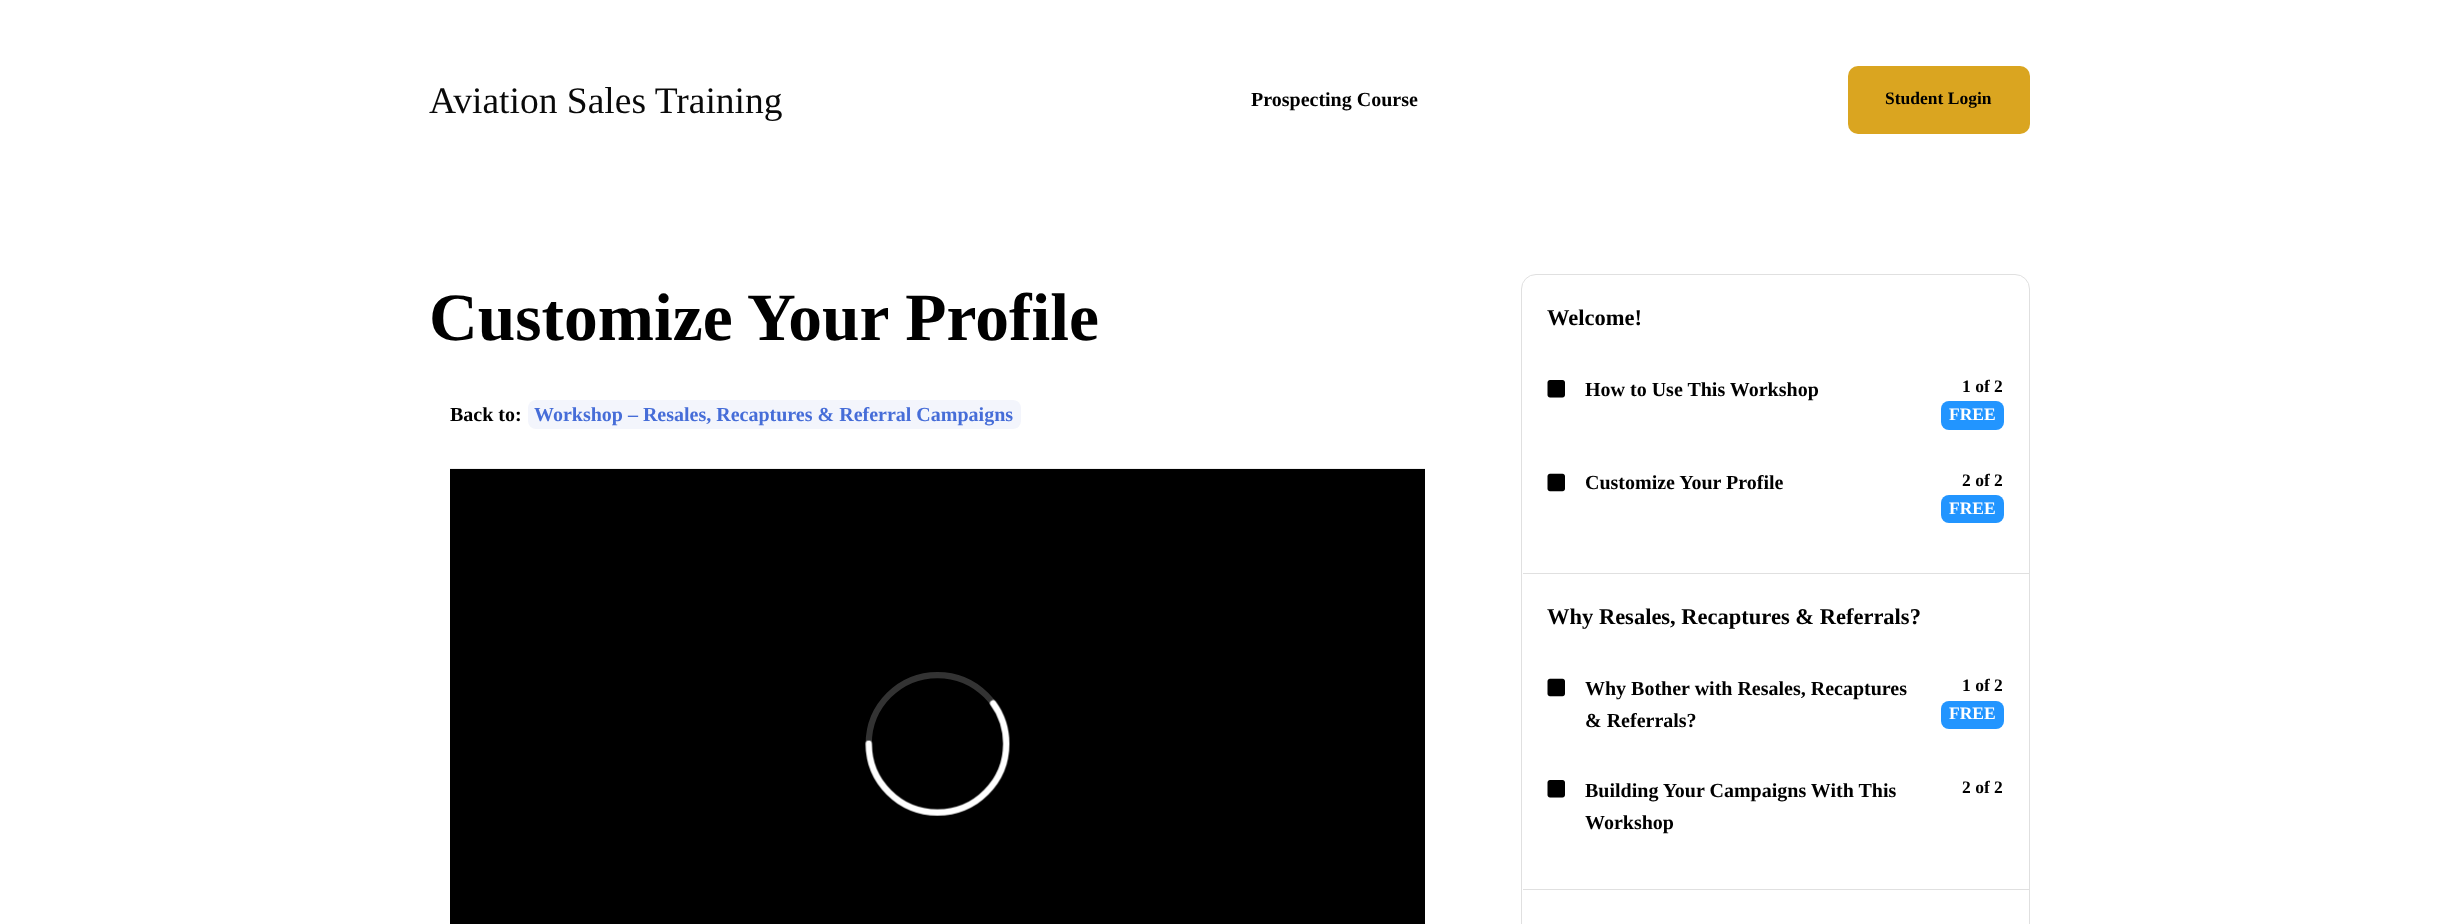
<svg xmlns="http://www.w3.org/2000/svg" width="2458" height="924">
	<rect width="100%" height="100%" fill="#FFFFFF" />
	<text x="429" y="113" font-family="Liberation Serif" font-size="37.5" fill="#090909">Aviation Sales Training</text>
	<text x="1251" y="106" font-family="Liberation Serif" font-size="20" font-weight="700" fill="#000000">Prospecting Course</text>
	<rect x="1848" y="66" width="182" height="68" rx="10" fill="#DAA520" />
	<text x="1885" y="104" font-family="Liberation Serif" font-size="17.5" font-weight="700" fill="#000000">Student Login</text>
	<text x="429" y="340" font-family="Liberation Serif" font-size="67.5" font-weight="700" fill="#000000">Customize Your Profile</text>
	<text x="450" y="421" font-family="Liberation Serif" font-size="20" font-weight="700" fill="#000000">Back to:</text>
	<rect x="528" y="400" width="493" height="29" rx="8" fill="#F3F5FC" />
	<text x="534" y="421" font-family="Liberation Serif" font-size="20" font-weight="700" fill="#466DD8">Workshop – Resales, Recaptures &amp; Referral Campaigns</text>
	<image x="450" y="468" width="975" height="456" href="assets/img1.png" />
	<rect x="1521.5" y="274.5" width="508" height="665" rx="14.5" fill="none" stroke="#E0E0E0" />
	<text x="1547" y="325" font-family="Liberation Serif" font-size="22.5" font-weight="700" fill="#000000">Welcome!</text>
	<image x="1547" y="380" width="18" height="18" href="assets/img2.png" />
	<text x="1585" y="396" font-family="Liberation Serif" font-size="20" font-weight="700" fill="#000000">How to Use This Workshop</text>
	<text x="1962" y="392" font-family="Liberation Serif" font-size="17.5" font-weight="700" fill="#000000">1 of 2</text>
	<rect x="1941" y="401" width="63" height="29" rx="8" fill="#2295FF" />
	<text x="1949" y="420" font-family="Liberation Serif" font-size="17.5" font-weight="700" fill="#FFFFFF">FREE</text>
	<image x="1547" y="473" width="18" height="19" href="assets/img3.png" />
	<text x="1585" y="489" font-family="Liberation Serif" font-size="20" font-weight="700" fill="#000000">Customize Your Profile</text>
	<text x="1962" y="486" font-family="Liberation Serif" font-size="17.5" font-weight="700" fill="#000000">2 of 2</text>
	<rect x="1941" y="495" width="63" height="28" rx="8" fill="#2295FF" />
	<text x="1949" y="514" font-family="Liberation Serif" font-size="17.5" font-weight="700" fill="#FFFFFF">FREE</text>
	<rect x="1523" y="573" width="506" height="1" fill="#E0E0E0" />
	<text x="1547" y="624" font-family="Liberation Serif" font-size="22.5" font-weight="700" fill="#000000">Why Resales, Recaptures &amp; Referrals?</text>
	<image x="1547" y="678" width="18" height="19" href="assets/img3.png" />
	<g font-family="Liberation Serif" font-size="20" font-weight="700" fill="#000000">
		<text x="1585" y="695">Why Bother with Resales, Recaptures</text>
		<text x="1585" y="727">&amp; Referrals?</text>
	</g>
	<text x="1962" y="691" font-family="Liberation Serif" font-size="17.5" font-weight="700" fill="#000000">1 of 2</text>
	<rect x="1941" y="701" width="63" height="28" rx="8" fill="#2295FF" />
	<text x="1949" y="719" font-family="Liberation Serif" font-size="17.5" font-weight="700" fill="#FFFFFF">FREE</text>
	<image x="1547" y="780" width="18" height="18" href="assets/img2.png" />
	<g font-family="Liberation Serif" font-size="20" font-weight="700" fill="#000000">
		<text x="1585" y="797">Building Your Campaigns With This</text>
		<text x="1585" y="829">Workshop</text>
	</g>
	<text x="1962" y="793" font-family="Liberation Serif" font-size="17.5" font-weight="700" fill="#000000">2 of 2</text>
	<rect x="1523" y="889" width="506" height="1" fill="#E0E0E0" />
</svg>
